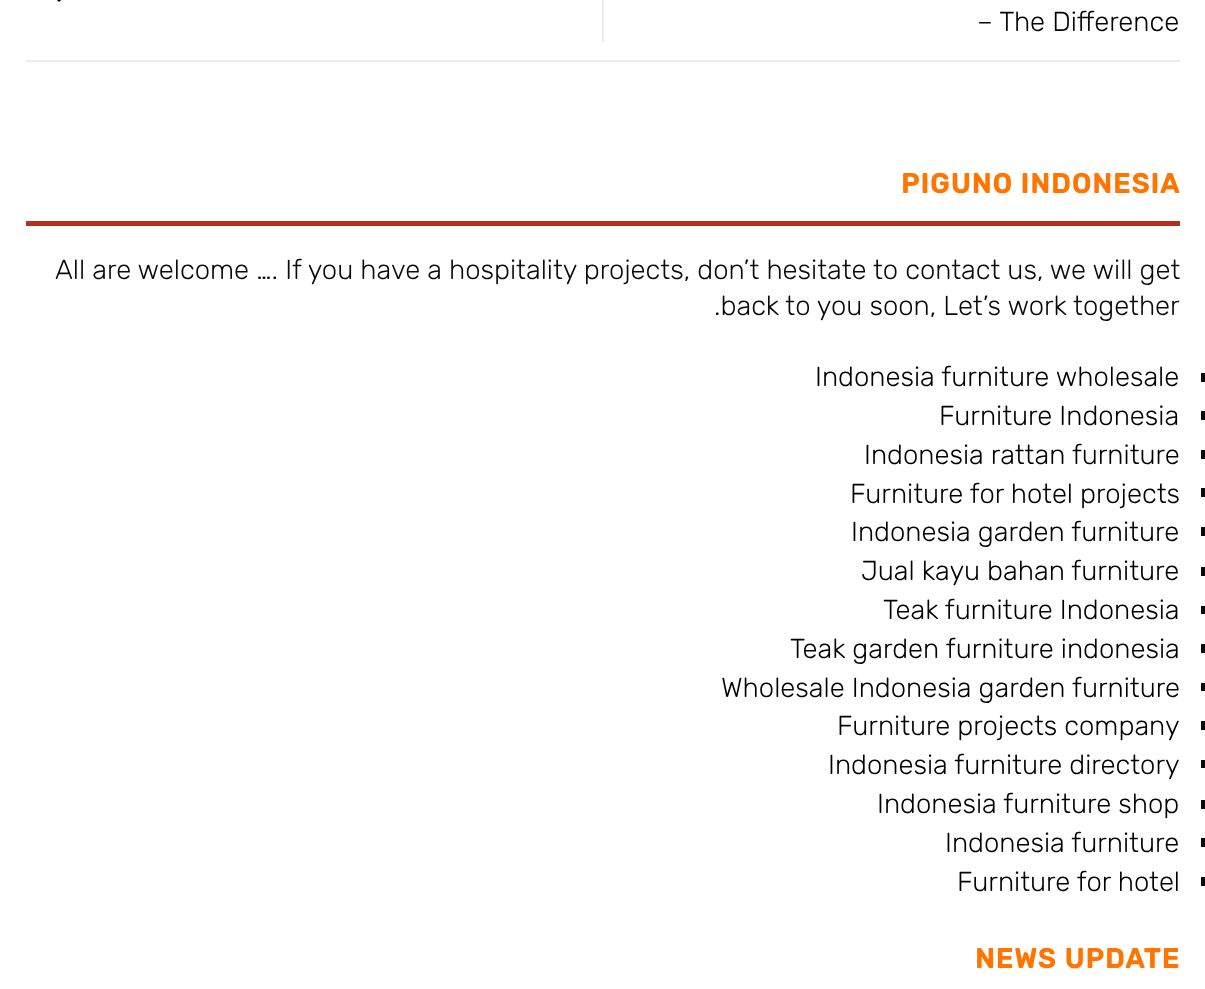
<svg xmlns="http://www.w3.org/2000/svg" width="1205" height="989">
	<rect width="100%" height="100%" fill="#FFFFFF" />
	<rect x="26" y="60" width="1154" height="2" fill="#ECECEC" />
	<rect x="602" y="0" width="2" height="42" fill="#ECECEC" />
	<image x="57" y="0" width="5" height="2" href="assets/img1.png" />
	<text x="977" y="31" font-family="Rubik" font-size="27.45" font-weight="300" fill="#000000">– The Difference</text>
	<text x="901" y="193" font-family="Rubik" font-size="27.45" font-weight="700" letter-spacing="1.4" fill="#FF7500">PIGUNO INDONESIA</text>
	<rect x="26" y="221" width="1154" height="5" fill="#B1311D" />
	<g font-family="Rubik" font-size="27.45" font-weight="300" fill="#0A0A0A">
		<text x="55" y="279">All are welcome …. If you have a hospitality projects, don’t hesitate to contact us, we will get</text>
		<text x="714" y="315">.back to you soon, Let’s work together</text>
	</g>
	<text x="815" y="386" font-family="Rubik" font-size="27.45" font-weight="300" fill="#000000">Indonesia furniture wholesale</text>
	<rect x="1201" y="373" width="4" height="9" fill="#0A0A0A" />
	<text x="939" y="425" font-family="Rubik" font-size="27.45" font-weight="300" fill="#000000">Furniture Indonesia</text>
	<rect x="1201" y="411" width="4" height="9" fill="#0A0A0A" />
	<text x="864" y="464" font-family="Rubik" font-size="27.45" font-weight="300" fill="#000000">Indonesia rattan furniture</text>
	<rect x="1201" y="450" width="4" height="9" fill="#0A0A0A" />
	<text x="850" y="503" font-family="Rubik" font-size="27.45" font-weight="300" fill="#000000">Furniture for hotel projects</text>
	<rect x="1201" y="488" width="4" height="9" fill="#0A0A0A" />
	<text x="851" y="541" font-family="Rubik" font-size="27.45" font-weight="300" fill="#000000">Indonesia garden furniture</text>
	<rect x="1201" y="527" width="4" height="9" fill="#0A0A0A" />
	<text x="861" y="580" font-family="Rubik" font-size="27.45" font-weight="300" fill="#000000">Jual kayu bahan furniture</text>
	<rect x="1201" y="567" width="4" height="9" fill="#0A0A0A" />
	<text x="883" y="619" font-family="Rubik" font-size="27.45" font-weight="300" fill="#000000">Teak furniture Indonesia</text>
	<rect x="1201" y="606" width="4" height="8" fill="#0A0A0A" />
	<text x="790" y="658" font-family="Rubik" font-size="27.45" font-weight="300" fill="#000000">Teak garden furniture indonesia</text>
	<rect x="1201" y="644" width="4" height="9" fill="#0A0A0A" />
	<text x="721" y="697" font-family="Rubik" font-size="27.45" font-weight="300" fill="#000000">Wholesale Indonesia garden furniture</text>
	<rect x="1201" y="683" width="4" height="8" fill="#0A0A0A" />
	<text x="837" y="735" font-family="Rubik" font-size="27.45" font-weight="300" fill="#000000">Furniture projects company</text>
	<rect x="1201" y="721" width="4" height="9" fill="#0A0A0A" />
	<text x="828" y="774" font-family="Rubik" font-size="27.45" font-weight="300" fill="#000000">Indonesia furniture directory</text>
	<rect x="1201" y="760" width="4" height="8" fill="#0A0A0A" />
	<text x="877" y="813" font-family="Rubik" font-size="27.45" font-weight="300" fill="#000000">Indonesia furniture shop</text>
	<rect x="1201" y="800" width="4" height="9" fill="#0A0A0A" />
	<text x="945" y="852" font-family="Rubik" font-size="27.45" font-weight="300" fill="#000000">Indonesia furniture</text>
	<rect x="1201" y="838" width="4" height="9" fill="#0A0A0A" />
	<text x="957" y="891" font-family="Rubik" font-size="27.45" font-weight="300" fill="#000000">Furniture for hotel</text>
	<rect x="1201" y="877" width="4" height="9" fill="#0A0A0A" />
	<text x="975" y="968" font-family="Rubik" font-size="27.45" font-weight="700" letter-spacing="1.4" fill="#FF7500">NEWS UPDATE</text>
</svg>
